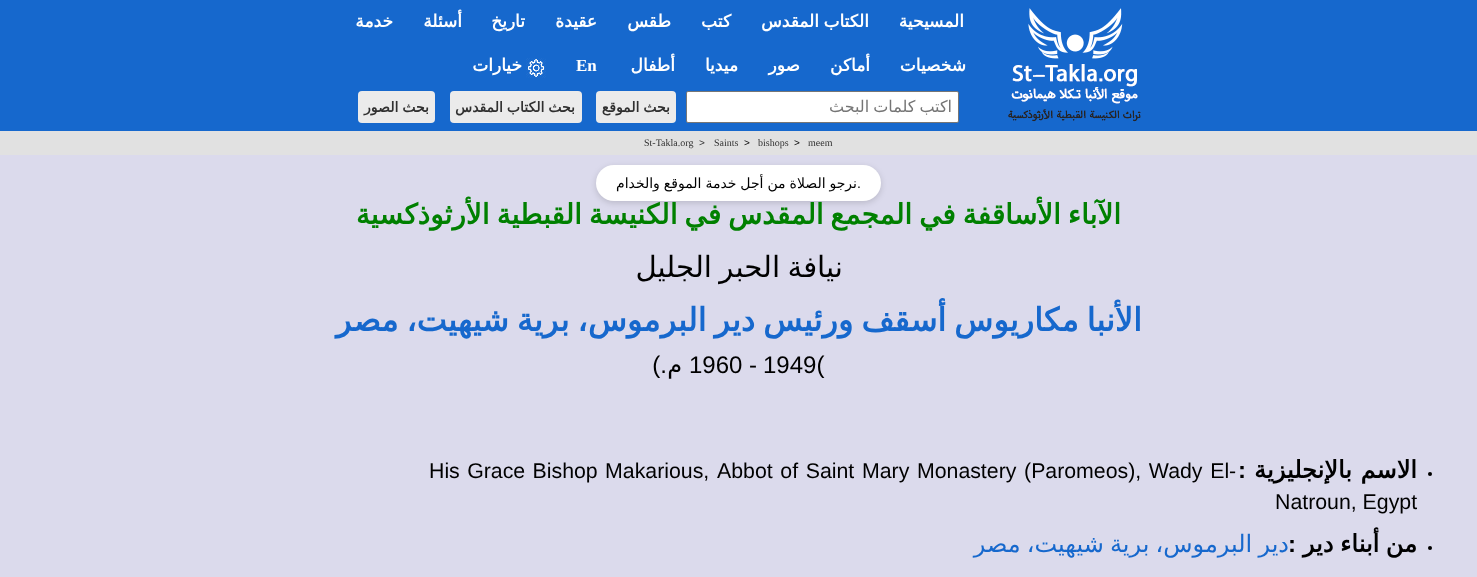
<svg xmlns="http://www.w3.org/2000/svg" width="1477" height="577">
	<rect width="100%" height="100%" fill="#DBDAEC" />
	<rect x="0" y="0" width="1477" height="131" fill="#1668CD" />
	<image x="1008" y="8" width="133" height="114" href="assets/img1.png" />
	<g font-family="DejaVu Sans" font-size="17" font-weight="700" direction="rtl" fill="#FFFFFF">
		<text x="964" y="27">المسيحية</text>
		<text x="869" y="27">الكتاب</text>
		<text x="819" y="27">المقدس</text>
		<text x="731" y="27">كتب</text>
		<text x="671" y="27">طقس</text>
		<text x="597" y="27">عقيدة</text>
		<text x="525" y="27">تاريخ</text>
		<text x="462" y="27">أسئلة</text>
		<text x="393" y="27">خدمة</text>
		<text x="966" y="71">شخصيات</text>
		<text x="870" y="71">أماكن</text>
		<text x="800" y="71">صور</text>
		<text x="738" y="71">ميديا</text>
		<text x="675" y="71">أطفال</text>
	</g>
	<text x="576" y="71" font-family="Liberation Serif" font-size="17" font-weight="700" fill="#FFFFFF">En</text>
	<image x="526" y="58" width="20" height="20" href="assets/img2.png" />
	<text x="522" y="71" font-family="DejaVu Sans" font-size="17" font-weight="700" direction="rtl" fill="#FFFFFF">خيارات</text>
	<rect x="686.5" y="91.5" width="272" height="31" rx="1.5" fill="#FFFFFF" stroke="#767676" />
	<text x="952" y="112" word-spacing="-1" font-family="DejaVu Sans" font-size="16" direction="rtl" fill="#757575">اكتب كلمات البحث</text>
	<rect x="596" y="91" width="80" height="32" rx="4" fill="#EBEBEB" />
	<text x="670" y="112" word-spacing="-0.5" font-family="DejaVu Sans" font-size="14" font-weight="700" direction="rtl" fill="#303030">بحث الموقع</text>
	<rect x="450" y="91" width="132" height="32" rx="4" fill="#EBEBEB" />
	<text x="575" y="112" word-spacing="-0.5" font-family="DejaVu Sans" font-size="14" font-weight="700" direction="rtl" fill="#303030">بحث الكتاب المقدس</text>
	<rect x="358" y="91" width="77" height="32" rx="4" fill="#EBEBEB" />
	<text x="429" y="112" word-spacing="-0.5" font-family="DejaVu Sans" font-size="14" font-weight="700" direction="rtl" fill="#303030">بحث الصور</text>
	<rect x="0" y="131" width="1477" height="24" fill="#E1E1E1" />
	<text x="808" y="146" font-family="Liberation Serif" font-size="10" fill="#303030">meem</text>
	<text x="794" y="146" font-family="Liberation Sans" font-size="10" fill="#000000">&gt;</text>
	<text x="758" y="146" font-family="Liberation Serif" font-size="10" fill="#303030">bishops</text>
	<text x="744" y="146" font-family="Liberation Sans" font-size="10" fill="#000000">&gt;</text>
	<text x="714" y="146" font-family="Liberation Serif" font-size="10" fill="#303030">Saints</text>
	<text x="699" y="146" font-family="Liberation Sans" font-size="10" fill="#303030">&gt;</text>
	<text x="644" y="146" font-family="Liberation Serif" font-size="10" fill="#303030">St-Takla.org</text>
	<rect x="596" y="167" width="285" height="36" rx="18" fill="#000000" fill-opacity="0.15" filter="blur(3px)" />
	<text x="1121" y="224" word-spacing="-2" font-family="DejaVu Sans" font-size="28" font-weight="700" direction="rtl" fill="#008000">الآباء الأساقفة في المجمع المقدس في الكنيسة القبطية الأرثوذكسية</text>
	<rect x="596" y="165" width="285" height="36" rx="18" fill="#FFFFFF" />
	<text x="861" y="188" font-family="Liberation Sans" font-size="14" direction="rtl" fill="#000000">.</text>
	<text x="857" y="188" word-spacing="-0.5" font-family="DejaVu Sans" font-size="14" direction="rtl" fill="#000000">نرجو الصلاة من أجل خدمة الموقع والخدام</text>
	<text x="843" y="277" word-spacing="-2" font-family="DejaVu Sans" font-size="29.25" direction="rtl" fill="#000000">نيافة الحبر الجليل</text>
	<text x="1142" y="331" word-spacing="-2.25" font-family="DejaVu Sans" font-size="32" font-weight="700" direction="rtl" fill="#1668CD">الأنبا مكاريوس أسقف ورئيس دير البرموس، برية شيهيت، مصر</text>
	<g font-family="Liberation Sans" font-size="24" fill="#000000">
		<text x="763" y="373">1949(</text>
		<text x="749" y="373">-</text>
		<text x="689" y="373">1960</text>
	</g>
	<text x="682" y="373" font-family="DejaVu Sans" font-size="24" direction="rtl" fill="#000000">م</text>
	<text x="667" y="373" font-family="Liberation Sans" font-size="24" direction="rtl" fill="#000000">.)</text>
	<circle cx="1430" cy="474" r="2" fill="#000000" />
	<text x="1417" y="478" word-spacing="1" font-family="DejaVu Sans" font-size="24" font-weight="700" direction="rtl" fill="#000000">الاسم بالإنجليزية</text>
	<text x="1238" y="478" font-family="Liberation Sans" font-size="24" font-weight="700" fill="#000000">:</text>
	<g font-family="Liberation Sans" font-size="21.3" fill="#000000">
		<text x="717" y="478" word-spacing="1.75">Abbot of Saint Mary Monastery (Paromeos), Wady El-</text>
		<text x="429" y="478" word-spacing="1.5">His Grace Bishop Makarious,</text>
		<text x="1275" y="509">Natroun, Egypt</text>
	</g>
	<circle cx="1430" cy="548" r="2" fill="#000000" />
	<text x="1417" y="552" word-spacing="-1" font-family="DejaVu Sans" font-size="24" font-weight="700" direction="rtl" fill="#000000">من أبناء دير</text>
	<text x="1288" y="552" font-family="Liberation Sans" font-size="24" font-weight="700" fill="#000000">:</text>
	<text x="1289" y="552" word-spacing="-1.5" font-family="DejaVu Sans" font-size="24" direction="rtl" fill="#1668CD">دير البرموس، برية شيهيت، مصر</text>
</svg>
